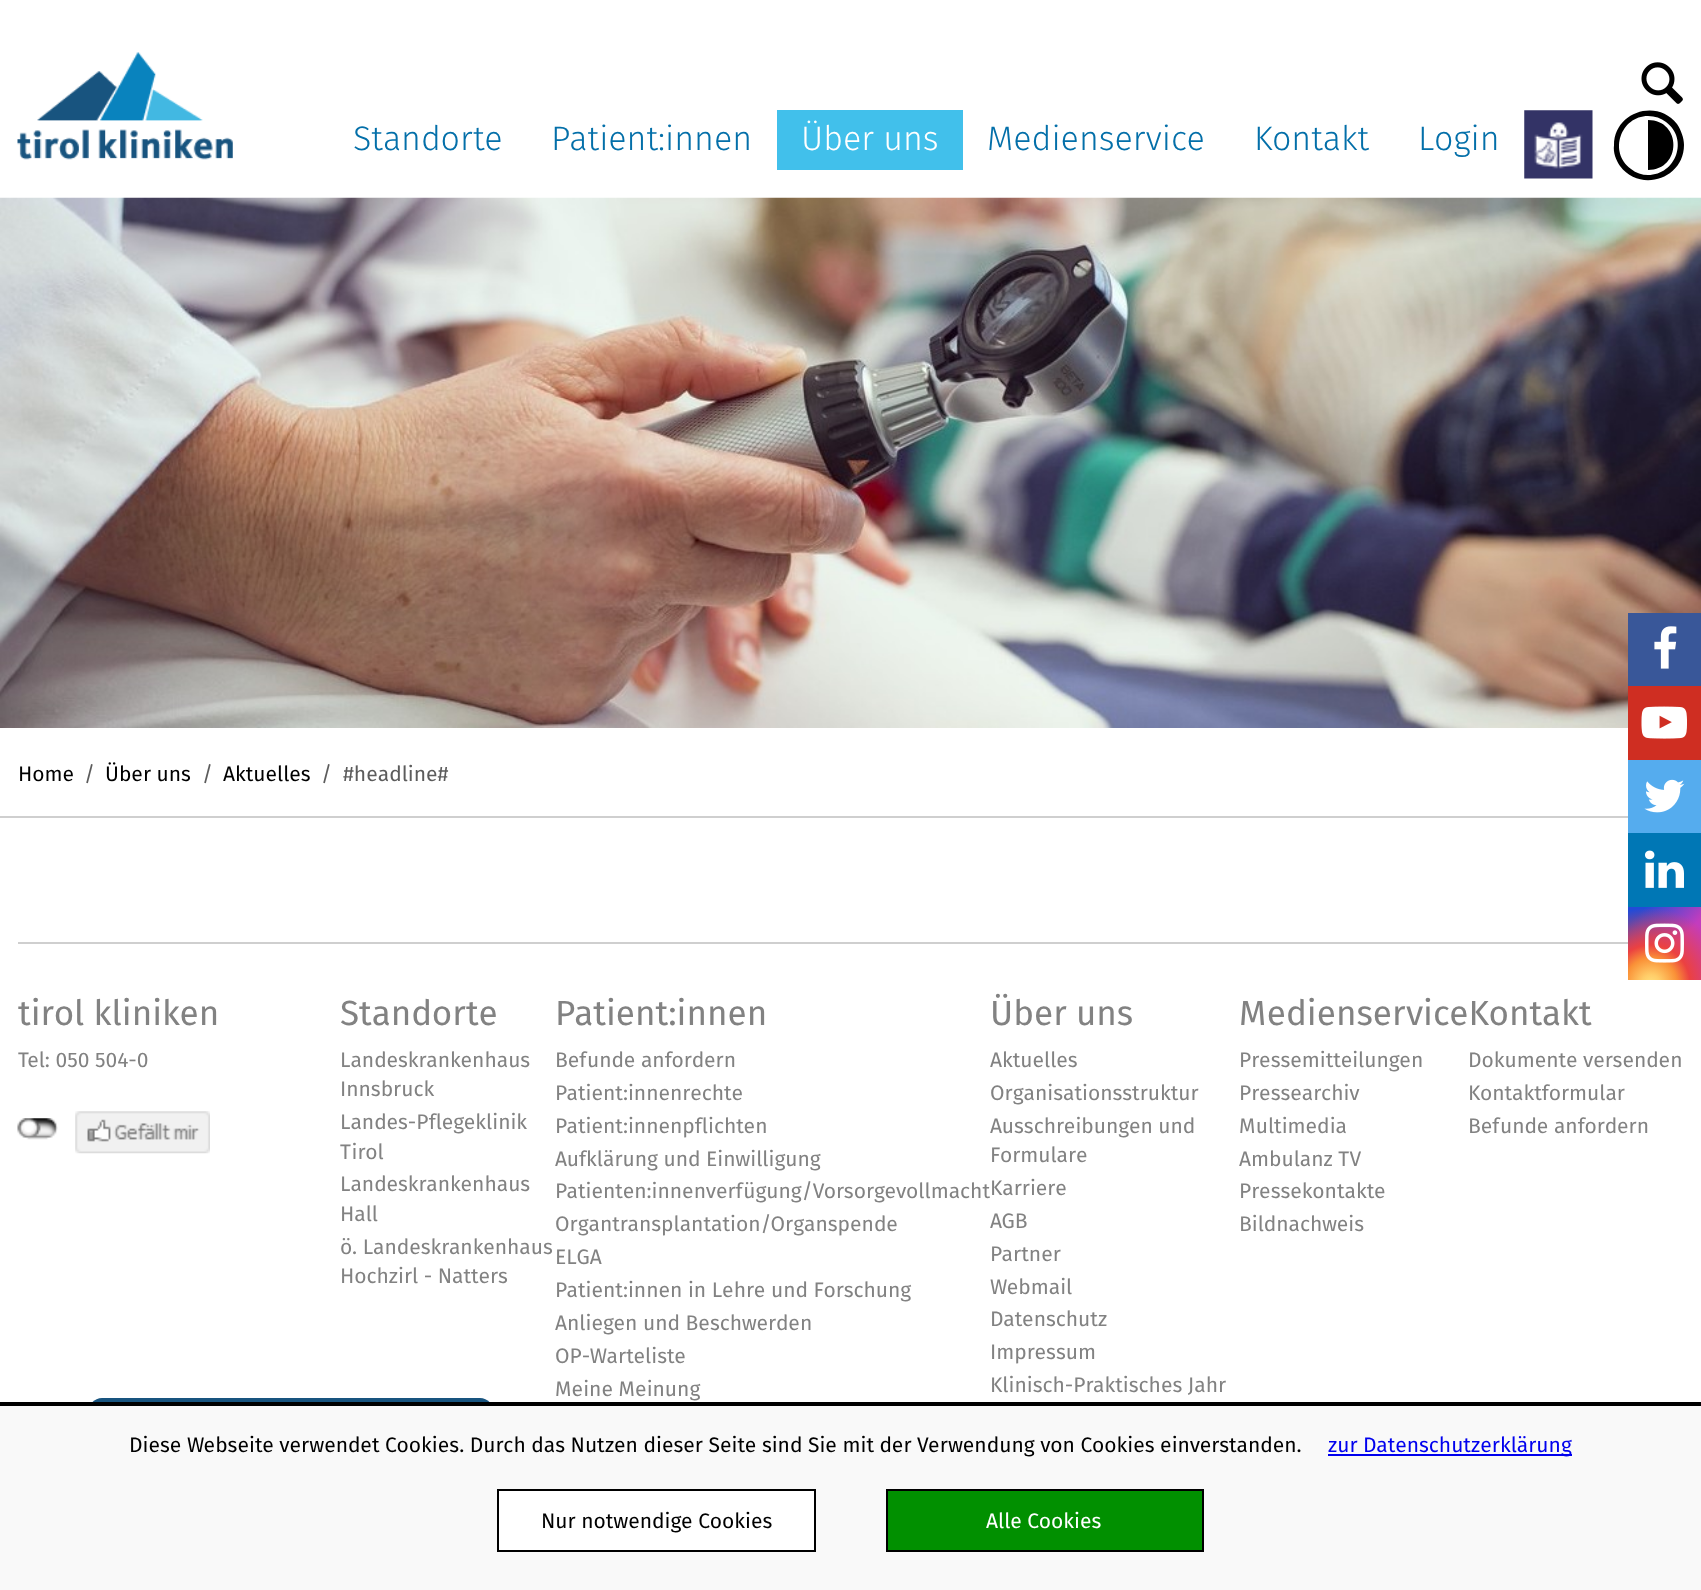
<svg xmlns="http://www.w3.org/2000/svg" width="1701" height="1590">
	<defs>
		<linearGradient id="g1" gradientUnits="userSpaceOnUse" x1="1628" y1="907" x2="1701" y2="980"><stop offset="0.12" stop-color="#234BD7" /><stop offset="0.58" stop-color="#C33CBE" /></linearGradient>
		<radialGradient id="g2" gradientUnits="userSpaceOnUse" cx="1651" cy="984" r="93"><stop offset="0" stop-color="#FFE17D" /><stop offset="0.1" stop-color="#FFCD69" /><stop offset="0.28" stop-color="#FA9137" /><stop offset="0.42" stop-color="#EB4141" /><stop offset="0.82" stop-color="#EB4141" stop-opacity="0" /></radialGradient>
	</defs>
	<rect width="100%" height="100%" fill="#FFFFFF" />
	<image x="17" y="52" width="216" height="108" href="assets/img1.png" />
	<image x="1641" y="62" width="42" height="42" href="assets/img2.png" />
	<g font-family="Fira Sans" font-size="34" font-weight="300" fill="#036FA9">
		<text x="353" y="150">Standorte</text>
		<text x="551" y="150">Patient:innen</text>
	</g>
	<rect x="777" y="110" width="186" height="60" fill="#41C0EB" />
	<text x="801" y="150" font-family="Fira Sans" font-size="34" font-weight="300" fill="#FFFFFF">Über uns</text>
	<g font-family="Fira Sans" font-size="34" font-weight="300" fill="#036FA9">
		<text x="987" y="150">Medienservice</text>
		<text x="1254" y="150">Kontakt</text>
		<text x="1418" y="150">Login</text>
	</g>
	<image x="1524" y="110" width="69" height="69" href="assets/img3.png" />
	<path d="M1648 120V170C1682 170 1682 120 1648 120ZM1674 145ZM1648 180ZM1684 145C1684 138 1681 130 1677 124C1657 98 1614 112 1614 145C1613 153 1616 160 1620 166C1640 193 1684 179 1684 145ZM1648 175C1642 175 1636 173 1631 169C1608 152 1621 116 1648 116C1655 116 1661 118 1666 122C1689 139 1676 175 1648 175Z" fill="#000000" />
	<image x="0" y="197" width="1701" height="531" href="assets/img4.png" />
	<rect x="0" y="816" width="1628" height="2" fill="#CFCFCF" />
	<text x="18" y="781" font-family="Fira Sans" font-size="21" fill="#000000">Home</text>
	<text x="84" y="781" font-family="Fira Sans" font-size="21" fill="#5C5C5C">/</text>
	<text x="105" y="781" font-family="Fira Sans" font-size="21" fill="#000000">Über uns</text>
	<text x="202" y="781" font-family="Fira Sans" font-size="21" fill="#5C5C5C">/</text>
	<text x="223" y="781" font-family="Fira Sans" font-size="21" fill="#000000">Aktuelles</text>
	<g font-family="Fira Sans" font-size="21" fill="#5C5C5C">
		<text x="321" y="781">/</text>
		<text x="343" y="781">#headline#</text>
	</g>
	<rect x="18" y="942" width="1610" height="2" fill="#CFCFCF" />
	<rect x="1628" y="613" width="73" height="73" fill="#395799" />
	<image x="1654" y="626" width="23" height="43" href="assets/img5.png" />
	<rect x="1628" y="686" width="73" height="74" fill="#CF2E22" />
	<image x="1641" y="706" width="46" height="33" href="assets/img6.png" />
	<rect x="1628" y="760" width="73" height="73" fill="#55ACEE" />
	<image x="1644" y="779" width="41" height="34" href="assets/img7.png" />
	<rect x="1628" y="833" width="73" height="74" fill="#0077B5" />
	<image x="1645" y="850" width="39" height="38" href="assets/img8.png" />
	<rect x="1628" y="907" width="73" height="73" fill="url(#g1)" />
	<rect x="1628" y="909" width="73" height="71" fill="url(#g2)" />
	<image x="1645" y="923" width="39" height="40" href="assets/img9.png" />
	<text x="18" y="1025" font-family="Fira Sans" font-size="35" fill="#828282">tirol kliniken</text>
	<text x="18" y="1067" font-family="Fira Sans" font-size="21" fill="#828282">Tel: 050 504-0</text>
	<image x="17" y="1118" width="41" height="22" href="assets/img10.png" />
	<image x="75" y="1111" width="135" height="43" href="assets/img11.png" />
	<text x="340" y="1025" font-family="Fira Sans" font-size="35" fill="#828282">Standorte</text>
	<g font-family="Fira Sans" font-size="21" fill="#828282">
		<text x="340" y="1067">Landeskrankenhaus</text>
		<text x="340" y="1096">Innsbruck</text>
		<text x="340" y="1129">Landes-Pflegeklinik</text>
		<text x="340" y="1159">Tirol</text>
		<text x="340" y="1191">Landeskrankenhaus</text>
		<text x="340" y="1221">Hall</text>
		<text x="340" y="1254">ö. Landeskrankenhaus</text>
		<text x="340" y="1283">Hochzirl - Natters</text>
	</g>
	<text x="555" y="1025" font-family="Fira Sans" font-size="35" fill="#828282">Patient:innen</text>
	<g font-family="Fira Sans" font-size="21" fill="#828282">
		<text x="555" y="1067">Befunde anfordern</text>
		<text x="555" y="1100">Patient:innenrechte</text>
		<text x="555" y="1133">Patient:innenpflichten</text>
		<text x="555" y="1166">Aufklärung und Einwilligung</text>
		<text x="555" y="1198">Patienten:innenverfügung/Vorsorgevollmacht</text>
		<text x="555" y="1231">Organtransplantation/Organspende</text>
		<text x="555" y="1264">ELGA</text>
		<text x="555" y="1297">Patient:innen in Lehre und Forschung</text>
		<text x="555" y="1330">Anliegen und Beschwerden</text>
		<text x="555" y="1363">OP-Warteliste</text>
		<text x="555" y="1396">Meine Meinung</text>
	</g>
	<text x="990" y="1025" font-family="Fira Sans" font-size="35" fill="#828282">Über uns</text>
	<g font-family="Fira Sans" font-size="21" fill="#828282">
		<text x="990" y="1067">Aktuelles</text>
		<text x="990" y="1100">Organisationsstruktur</text>
		<text x="990" y="1133">Ausschreibungen und</text>
		<text x="990" y="1162">Formulare</text>
		<text x="990" y="1195">Karriere</text>
		<text x="990" y="1228">AGB</text>
		<text x="990" y="1261">Partner</text>
		<text x="990" y="1294">Webmail</text>
		<text x="990" y="1326">Datenschutz</text>
		<text x="990" y="1359">Impressum</text>
		<text x="990" y="1392">Klinisch-Praktisches Jahr</text>
	</g>
	<text x="1239" y="1025" font-family="Fira Sans" font-size="35" fill="#828282">MedienserviceKontakt</text>
	<g font-family="Fira Sans" font-size="21" fill="#828282">
		<text x="1239" y="1067">Pressemitteilungen</text>
		<text x="1239" y="1100">Pressearchiv</text>
		<text x="1239" y="1133">Multimedia</text>
		<text x="1239" y="1166">Ambulanz TV</text>
		<text x="1239" y="1198">Pressekontakte</text>
		<text x="1239" y="1231">Bildnachweis</text>
		<text x="1468" y="1067">Dokumente versenden</text>
		<text x="1468" y="1100">Kontaktformular</text>
		<text x="1468" y="1133">Befunde anfordern</text>
	</g>
	<path d="M102 1398H480C487.5 1398 494 1404.5 494 1412V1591H88V1412C88 1404.5 94.5 1398 102 1398Z" fill="#18547F" />
	<rect x="0" y="1406" width="1701" height="184" fill="#F9F9F9" />
	<rect x="0" y="1402" width="1701" height="4" fill="#000000" />
	<text x="129" y="1452" font-family="Fira Sans" font-size="21" fill="#000000">Diese Webseite verwendet Cookies. Durch das Nutzen dieser Seite sind Sie mit der Verwendung von Cookies einverstanden.</text>
	<rect x="1328" y="1454" width="244" height="2" fill="#0000EE" />
	<text x="1328" y="1452" font-family="Fira Sans" font-size="21" fill="#0000EE">zur Datenschutzerklärung</text>
	<rect x="498" y="1490" width="317" height="61" fill="#FFFFFF" stroke="#000000" stroke-width="2" />
	<text x="541" y="1528" font-family="Fira Sans" font-size="21" fill="#000000">Nur notwendige Cookies</text>
	<rect x="887" y="1490" width="316" height="61" fill="#019000" stroke="#000000" stroke-width="2" />
	<text x="986" y="1528" font-family="Fira Sans" font-size="21" fill="#FFFFFF">Alle Cookies</text>
</svg>
